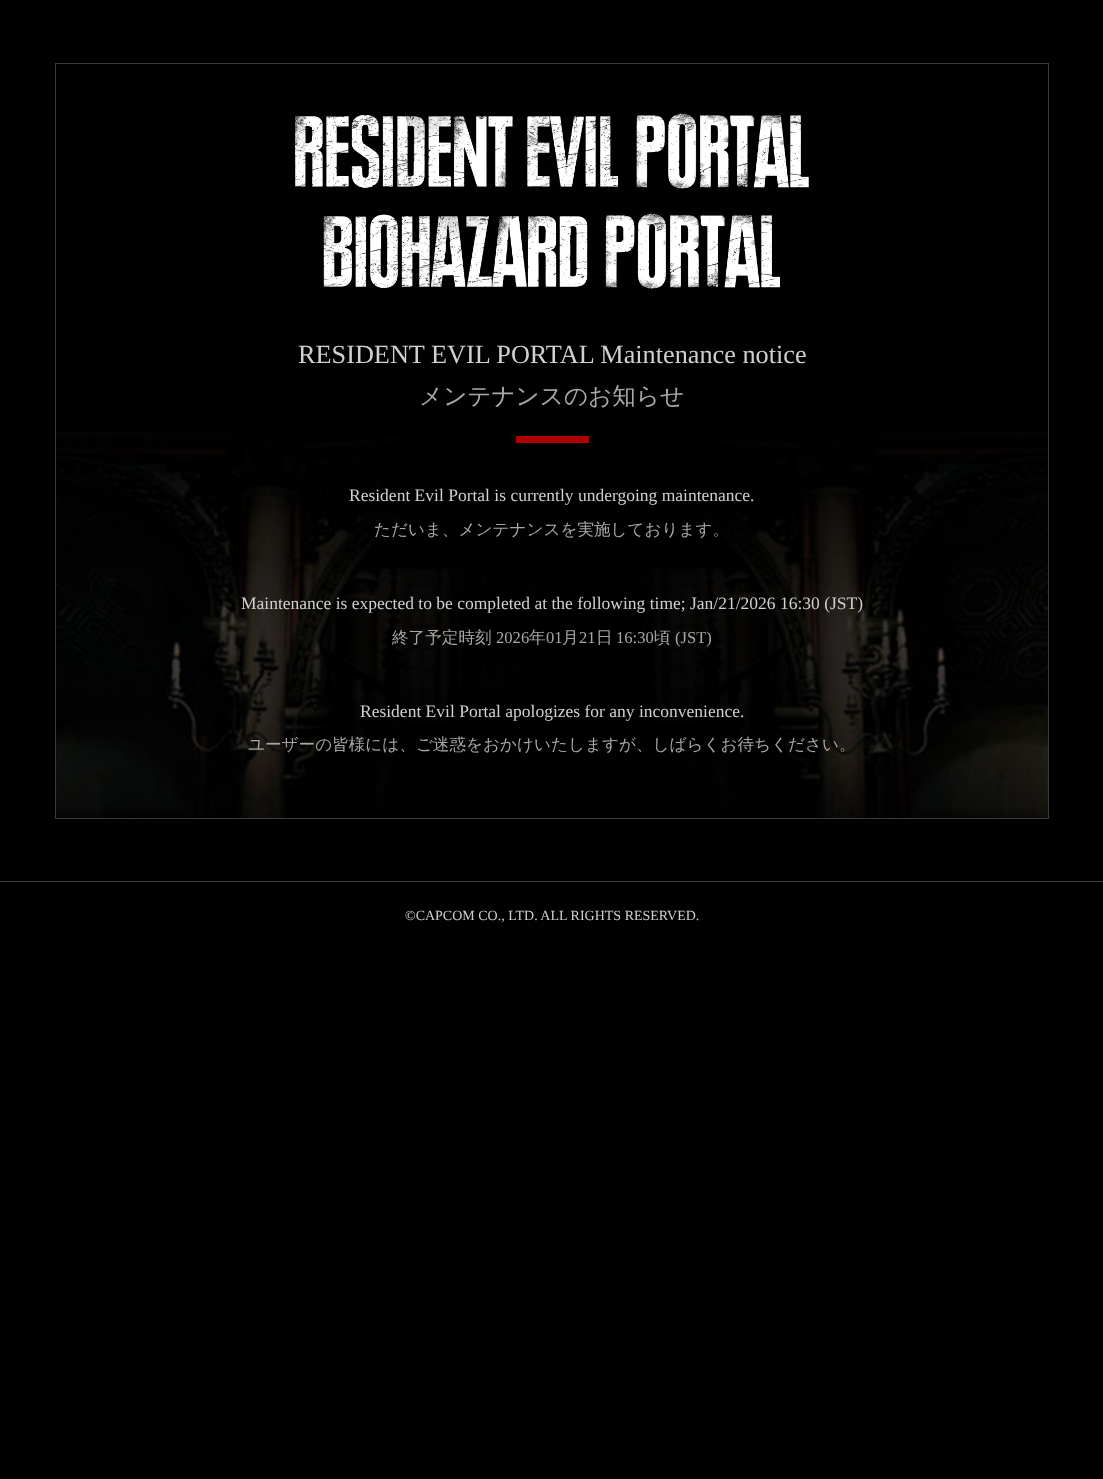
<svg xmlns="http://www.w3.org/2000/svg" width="1103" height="1479">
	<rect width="100%" height="100%" fill="#010101" />
	<image x="56" y="432" width="992" height="386" href="assets/img1.png" />
	<rect x="55.5" y="63.5" width="993" height="755" fill="none" stroke="#3A3A3A" />
	<image x="295" y="113" width="514" height="76" href="assets/img2.png" />
	<image x="323" y="213" width="457" height="76" href="assets/img3.png" />
	<text x="298" y="363" font-family="Liberation Serif" font-size="26.25" fill="#D0D0D0">RESIDENT EVIL PORTAL Maintenance notice</text>
	<text x="419" y="404" font-family="WenQuanYi Zen Hei" font-size="23.6" font-weight="500" fill="#A7A7A7">メンテナンスのお知らせ</text>
	<rect x="516" y="436" width="73" height="7" fill="#AE0000" />
	<text x="349" y="501" font-family="Liberation Serif" font-size="17.5" fill="#D0D0D0">Resident Evil Portal is currently undergoing maintenance.</text>
	<text x="374" y="535" font-family="WenQuanYi Zen Hei" font-size="16.6" font-weight="500" fill="#A7A7A7">ただいま、メンテナンスを実施しております。</text>
	<text x="241" y="609" font-family="Liberation Serif" font-size="17.5" fill="#D0D0D0">Maintenance is expected to be completed at the following time; Jan/21/2026 16:30 (JST)</text>
	<text x="392" y="643" font-family="WenQuanYi Zen Hei" font-size="16.6" font-weight="500" fill="#A7A7A7">終了予定時刻</text>
	<text x="496" y="643" font-family="Liberation Serif" font-size="16.6" fill="#A7A7A7">2026</text>
	<text x="529" y="643" font-family="WenQuanYi Zen Hei" font-size="16.6" font-weight="500" fill="#A7A7A7">年</text>
	<text x="546" y="643" font-family="Liberation Serif" font-size="16.6" fill="#A7A7A7">01</text>
	<text x="562" y="643" font-family="WenQuanYi Zen Hei" font-size="16.6" font-weight="500" fill="#A7A7A7">月</text>
	<text x="579" y="643" font-family="Liberation Serif" font-size="16.6" fill="#A7A7A7">21</text>
	<text x="596" y="643" font-family="WenQuanYi Zen Hei" font-size="16.6" font-weight="500" fill="#A7A7A7">日</text>
	<text x="616" y="643" font-family="Liberation Serif" font-size="16.6" fill="#A7A7A7">16:30</text>
	<text x="654" y="643" font-family="WenQuanYi Zen Hei" font-size="16.6" font-weight="500" fill="#A7A7A7">頃</text>
	<text x="675" y="643" font-family="Liberation Serif" font-size="16.6" fill="#A7A7A7">(JST)</text>
	<text x="360" y="717" font-family="Liberation Serif" font-size="17.5" fill="#D0D0D0">Resident Evil Portal apologizes for any inconvenience.</text>
	<text x="248" y="750" font-family="WenQuanYi Zen Hei" font-size="16.6" font-weight="500" fill="#A7A7A7">ユーザーの皆様には、ご迷惑をおかけいたしますが、しばらくお待ちください。</text>
	<rect x="0" y="881" width="1103" height="1" fill="#3A3A3A" />
	<text x="405" y="920" font-family="Liberation Serif" font-size="14" fill="#D0D0D0">©CAPCOM CO., LTD. ALL RIGHTS RESERVED.</text>
</svg>
